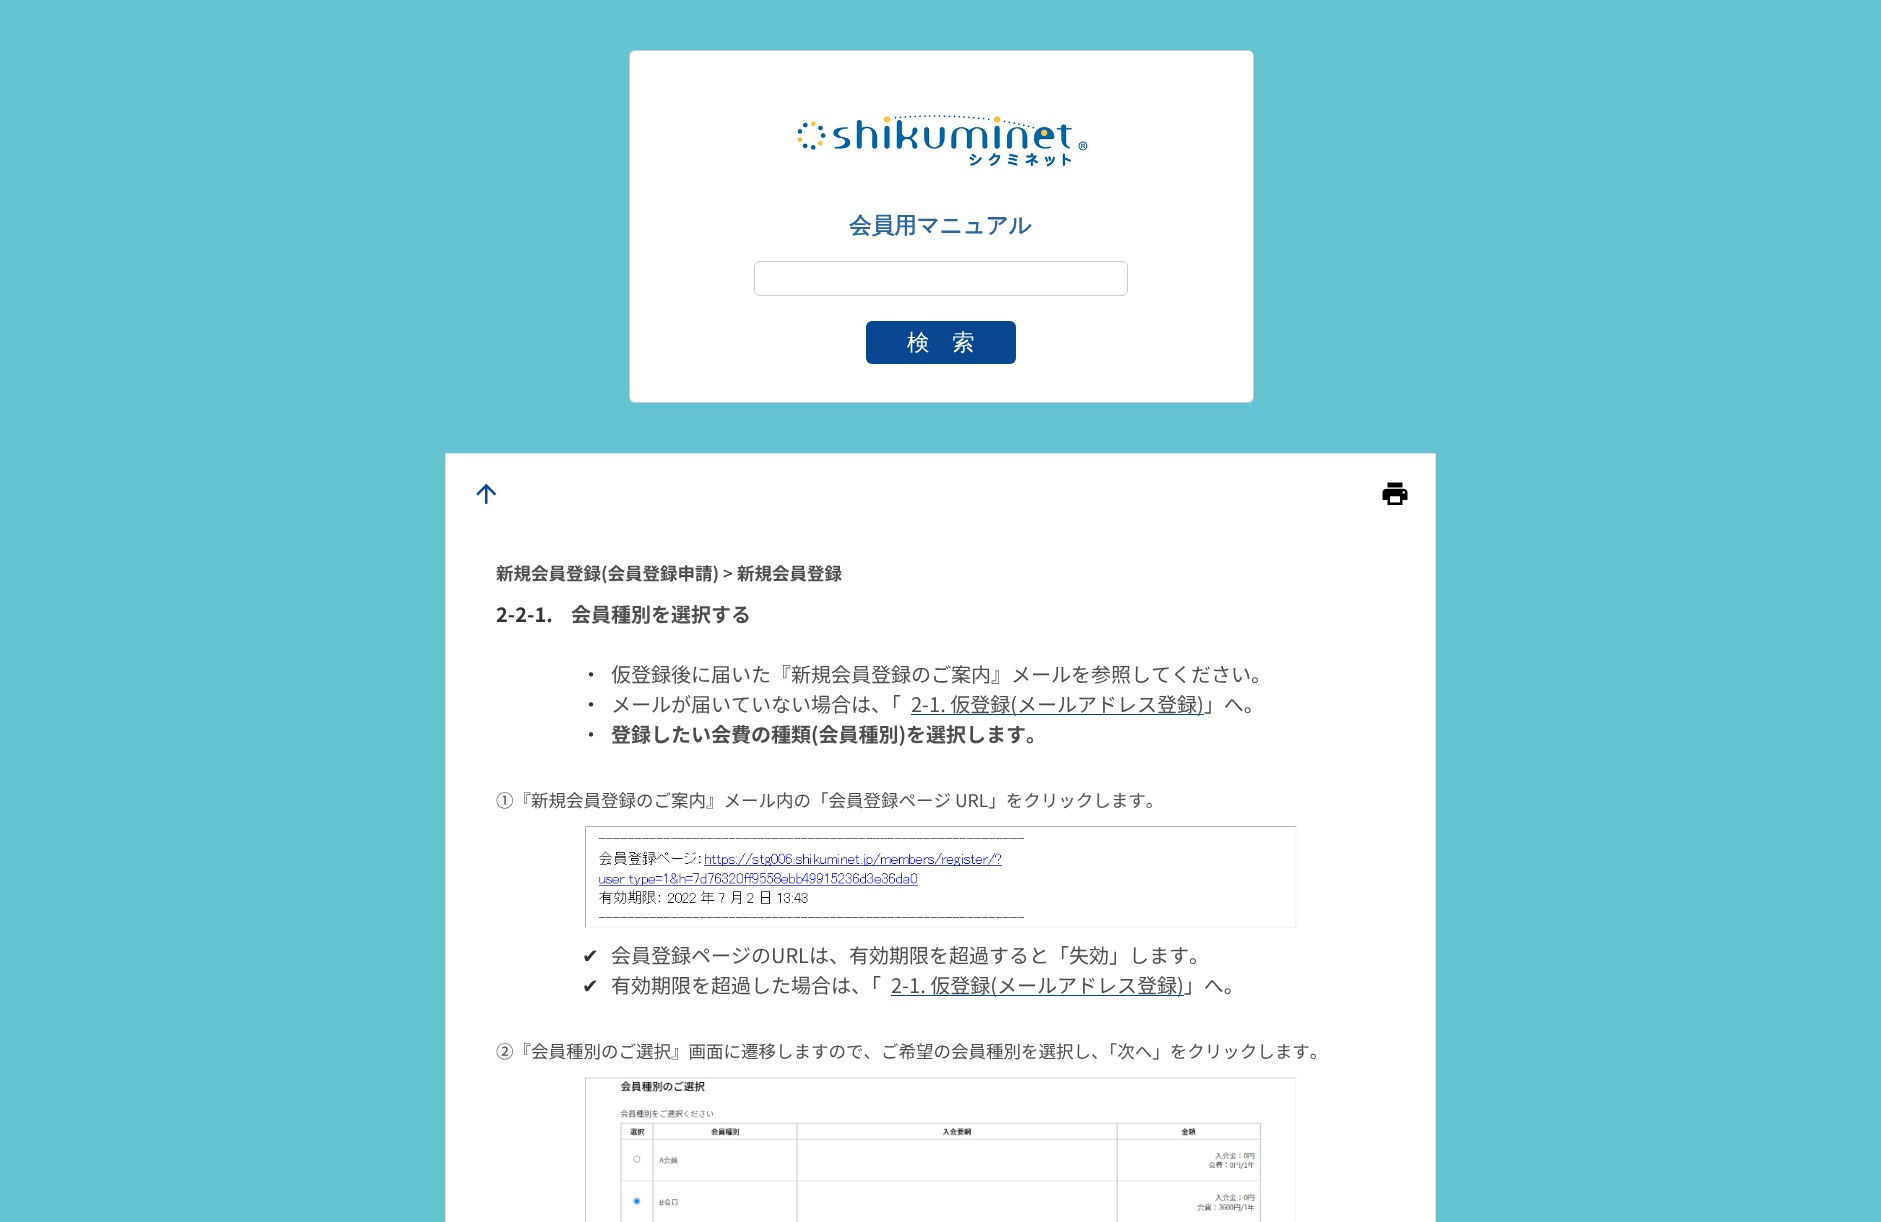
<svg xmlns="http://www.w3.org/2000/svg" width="1881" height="1222">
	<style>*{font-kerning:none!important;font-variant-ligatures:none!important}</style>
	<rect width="100%" height="100%" fill="#63C3D1" />
	<rect x="629.5" y="50.5" width="624" height="352" rx="5.5" fill="#FFFFFF" stroke="#CCCCCC" />
	<image x="795" y="115" width="295" height="52" href="assets/img1.png" />
	<text x="849" y="233" font-family="WenQuanYi Zen Hei" font-size="22.5" font-weight="700" fill="#2867A0">会員用マニュアル</text>
	<rect x="754.5" y="261.5" width="373" height="34" rx="5.5" fill="none" stroke="#CCCCCC" />
	<rect x="866" y="321" width="150" height="43" rx="6" fill="#084790" />
	<text x="907" y="350" font-family="WenQuanYi Zen Hei" font-size="22.5" font-weight="500" fill="#FFFFFF">検　索</text>
	<rect x="446" y="454" width="989" height="768" fill="#FFFFFF" />
	<rect x="445" y="453" width="991" height="1" fill="#DDDDDD" />
	<rect x="1435" y="453" width="1" height="769" fill="#DDDDDD" />
	<rect x="445" y="453" width="1" height="769" fill="#DDDDDD" />
	<image x="476" y="483" width="21" height="21" href="assets/img2.png" />
	<image x="1382" y="482" width="26" height="23" href="assets/img3.png" />
	<text x="496" y="580" font-family="Noto Sans JP" font-size="17.5" font-weight="700" fill="#4D4D4D">新規会員登録(会員登録申請)</text>
	<text x="723" y="580" font-family="Noto Sans JP" font-size="17.5" fill="#333333">&gt;</text>
	<text x="737" y="580" font-family="Noto Sans JP" font-size="17.5" font-weight="700" fill="#4D4D4D">新規会員登録</text>
	<text x="496" y="622" font-family="Noto Sans JP" font-size="20" font-weight="700" fill="#333333">2-2-1.</text>
	<text x="571" y="622" font-family="Noto Sans JP" font-size="20" font-weight="700" fill="#4D4D4D">会員種別を選択する</text>
	<text x="581" y="682" font-family="Noto Sans JP" font-size="20" fill="#333333">・</text>
	<text x="611" y="682" font-family="Noto Sans JP" font-size="20" fill="#4D4D4D">仮登録後に届いた『新規会員登録のご案内』メールを参照してください。</text>
	<text x="581" y="712" font-family="Noto Sans JP" font-size="20" fill="#333333">・</text>
	<text x="611" y="712" font-family="Noto Sans JP" font-size="20" fill="#4D4D4D">メールが届いていない場合は、「</text>
	<rect x="911" y="714" width="293" height="1" fill="#084790" />
	<text x="911" y="712" font-family="Noto Sans JP" font-size="20" fill="#4D4D4D">2-1. 仮登録(メールアドレス登録)」へ。</text>
	<text x="581" y="742" font-family="Noto Sans JP" font-size="20" fill="#333333">・</text>
	<text x="611" y="742" font-family="Noto Sans JP" font-size="20" font-weight="700" fill="#4D4D4D">登録したい会費の種類(会員種別)を選択します。</text>
	<text x="496" y="807" font-family="Noto Sans JP" font-size="17.5" fill="#4D4D4D">①『新規会員登録のご案内』メール内の「会員登録ページ URL」をクリックします。</text>
	<image x="585" y="826" width="712" height="102" href="assets/img4.png" />
	<text x="582" y="963" font-family="DejaVu Sans" font-size="20" fill="#333333">✔︎</text>
	<text x="611" y="963" font-family="Noto Sans JP" font-size="20" fill="#4D4D4D">会員登録ページのURLは、有効期限を超過すると「失効」します。</text>
	<text x="582" y="993" font-family="DejaVu Sans" font-size="20" fill="#333333">✔︎</text>
	<text x="611" y="993" font-family="Noto Sans JP" font-size="20" fill="#4D4D4D">有効期限を超過した場合は、「</text>
	<rect x="891" y="995" width="293" height="1" fill="#084790" />
	<text x="891" y="993" font-family="Noto Sans JP" font-size="20" fill="#4D4D4D">2-1. 仮登録(メールアドレス登録)」へ。</text>
	<text x="496" y="1058" font-family="Noto Sans JP" font-size="17.5" fill="#4D4D4D">②『会員種別のご選択』画面に遷移しますので、ご希望の会員種別を選択し、「次へ」をクリックします。</text>
	<image x="585" y="1077" width="712" height="145" href="assets/img5.png" />
</svg>
